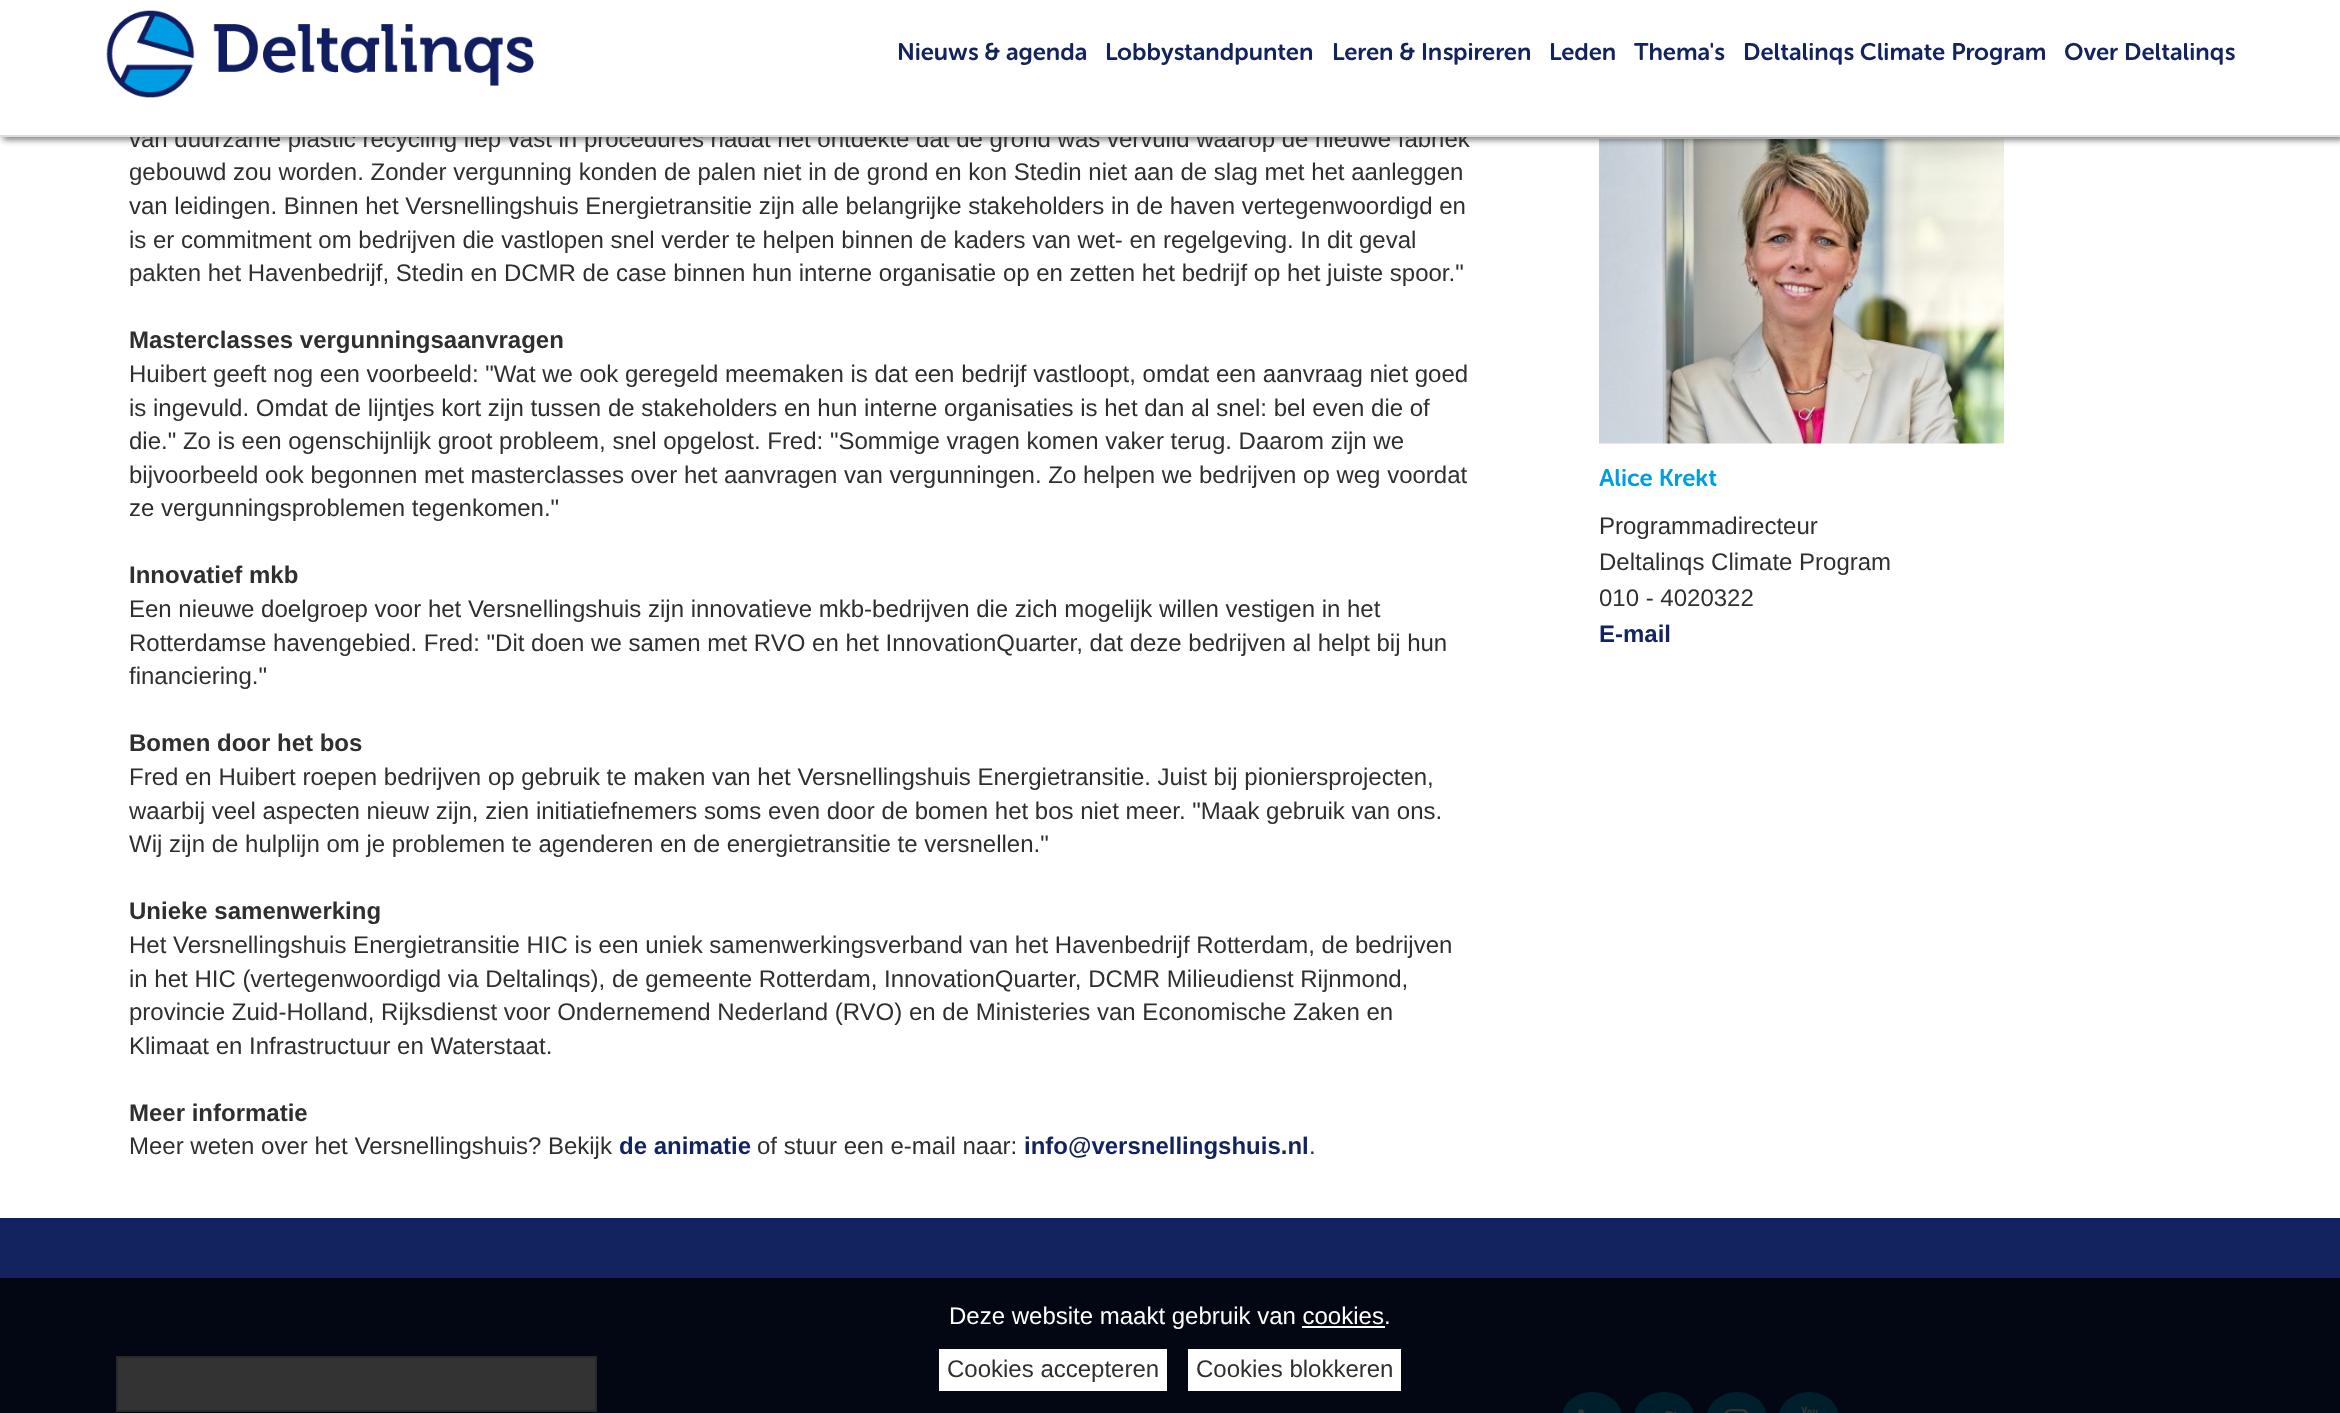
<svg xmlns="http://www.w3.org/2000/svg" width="2340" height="1413">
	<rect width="100%" height="100%" fill="#FFFFFF" />
	<image x="1599" y="139" width="405" height="305" href="assets/img2.png" />
	<rect x="3" y="3" width="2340" height="137" fill="#000000" fill-opacity="0.49" filter="blur(3px)" />
	<text x="129" y="147" font-family="Liberation Sans" font-size="24" fill="#2F2F2F">van duurzame plastic recycling liep vast in procedures nadat het ontdekte dat de grond was vervuild waarop de nieuwe fabriek</text>
	<rect x="0" y="0" width="2340" height="135" fill="#FFFFFF" />
	<rect x="0" y="135" width="2340" height="2" fill="#DDDDDD" />
	<image x="106" y="10" width="428" height="88" href="assets/img1.png" />
	<g font-family="'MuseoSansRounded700'" font-size="24" fill="#12235F">
		<text x="897" y="60">Nieuws &amp; agenda</text>
		<text x="1105" y="60">Lobbystandpunten</text>
		<text x="1332" y="60">Leren &amp; Inspireren</text>
		<text x="1549" y="60">Leden</text>
		<text x="1634" y="60">Thema's</text>
		<text x="1743" y="60">Deltalinqs Climate Program</text>
		<text x="2064" y="60">Over Deltalinqs</text>
	</g>
	<g font-family="Liberation Sans" font-size="24" fill="#2F2F2F">
		<text x="129" y="180">gebouwd zou worden. Zonder vergunning konden de palen niet in de grond en kon Stedin niet aan de slag met het aanleggen</text>
		<text x="129" y="214">van leidingen. Binnen het Versnellingshuis Energietransitie zijn alle belangrijke stakeholders in de haven vertegenwoordigd en</text>
		<text x="129" y="248">is er commitment om bedrijven die vastlopen snel verder te helpen binnen de kaders van wet- en regelgeving. In dit geval</text>
		<text x="129" y="281">pakten het Havenbedrijf, Stedin en DCMR de case binnen hun interne organisatie op en zetten het bedrijf op het juiste spoor."</text>
	</g>
	<text x="129" y="348" font-family="Liberation Sans" font-size="24" font-weight="700" fill="#2F2F2F">Masterclasses vergunningsaanvragen</text>
	<g font-family="Liberation Sans" font-size="24" fill="#2F2F2F">
		<text x="129" y="382">Huibert geeft nog een voorbeeld: "Wat we ook geregeld meemaken is dat een bedrijf vastloopt, omdat een aanvraag niet goed</text>
		<text x="129" y="416">is ingevuld. Omdat de lijntjes kort zijn tussen de stakeholders en hun interne organisaties is het dan al snel: bel even die of</text>
		<text x="129" y="449">die." Zo is een ogenschijnlijk groot probleem, snel opgelost. Fred: "Sommige vragen komen vaker terug. Daarom zijn we</text>
		<text x="129" y="483">bijvoorbeeld ook begonnen met masterclasses over het aanvragen van vergunningen. Zo helpen we bedrijven op weg voordat</text>
		<text x="129" y="516">ze vergunningsproblemen tegenkomen."</text>
	</g>
	<text x="129" y="583" font-family="Liberation Sans" font-size="24" font-weight="700" fill="#2F2F2F">Innovatief mkb</text>
	<g font-family="Liberation Sans" font-size="24" fill="#2F2F2F">
		<text x="129" y="617">Een nieuwe doelgroep voor het Versnellingshuis zijn innovatieve mkb-bedrijven die zich mogelijk willen vestigen in het</text>
		<text x="129" y="651">Rotterdamse havengebied. Fred: "Dit doen we samen met RVO en het InnovationQuarter, dat deze bedrijven al helpt bij hun</text>
		<text x="129" y="684">financiering."</text>
	</g>
	<text x="129" y="751" font-family="Liberation Sans" font-size="24" font-weight="700" fill="#2F2F2F">Bomen door het bos</text>
	<g font-family="Liberation Sans" font-size="24" fill="#2F2F2F">
		<text x="129" y="785">Fred en Huibert roepen bedrijven op gebruik te maken van het Versnellingshuis Energietransitie. Juist bij pioniersprojecten,</text>
		<text x="129" y="819">waarbij veel aspecten nieuw zijn, zien initiatiefnemers soms even door de bomen het bos niet meer. "Maak gebruik van ons.</text>
		<text x="129" y="852">Wij zijn de hulplijn om je problemen te agenderen en de energietransitie te versnellen."</text>
	</g>
	<text x="129" y="919" font-family="Liberation Sans" font-size="24" font-weight="700" fill="#2F2F2F">Unieke samenwerking</text>
	<g font-family="Liberation Sans" font-size="24" fill="#2F2F2F">
		<text x="129" y="953">Het Versnellingshuis Energietransitie HIC is een uniek samenwerkingsverband van het Havenbedrijf Rotterdam, de bedrijven</text>
		<text x="129" y="987">in het HIC (vertegenwoordigd via Deltalinqs), de gemeente Rotterdam, InnovationQuarter, DCMR Milieudienst Rijnmond,</text>
		<text x="129" y="1020">provincie Zuid-Holland, Rijksdienst voor Ondernemend Nederland (RVO) en de Ministeries van Economische Zaken en</text>
		<text x="129" y="1054">Klimaat en Infrastructuur en Waterstaat.</text>
	</g>
	<text x="129" y="1121" font-family="Liberation Sans" font-size="24" font-weight="700" fill="#2F2F2F">Meer informatie</text>
	<text x="129" y="1154" font-family="Liberation Sans" font-size="24" fill="#2F2F2F">Meer weten over het Versnellingshuis? Bekijk</text>
	<text x="619" y="1154" font-family="Liberation Sans" font-size="24" font-weight="700" fill="#12235F">de animatie</text>
	<text x="757" y="1154" font-family="Liberation Sans" font-size="24" fill="#2F2F2F">of stuur een e-mail naar:</text>
	<text x="1024" y="1154" font-family="Liberation Sans" font-size="24" font-weight="700" fill="#12235F">info@versnellingshuis.nl</text>
	<text x="1309" y="1154" font-family="Liberation Sans" font-size="24" fill="#2F2F2F">.</text>
	<text x="1599" y="486" font-family="'MuseoSansRounded700'" font-size="24" fill="#009DE0">Alice Krekt</text>
	<g font-family="Liberation Sans" font-size="24" fill="#2F2F2F">
		<text x="1599" y="534">Programmadirecteur</text>
		<text x="1599" y="570">Deltalinqs Climate Program</text>
		<text x="1599" y="606">010 - 4020322</text>
	</g>
	<text x="1599" y="642" font-family="Liberation Sans" font-size="24" font-weight="700" fill="#12235F">E-mail</text>
	<rect x="0" y="1218" width="2340" height="195" fill="#12235F" />
	<rect x="117" y="1357" width="479" height="54" fill="#FFFFFF" stroke="#CCCCCC" stroke-width="2" />
	<rect x="1562" y="1392" width="60" height="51" rx="30" fill="#009DE0" />
	<image x="1578" y="1409" width="7" height="4" href="assets/img3.png" />
	<rect x="1634" y="1392" width="60" height="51" rx="30" fill="#009DE0" />
	<image x="1652" y="1411" width="25" height="2" href="assets/img4.png" />
	<rect x="1707" y="1392" width="60" height="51" rx="30" fill="#009DE0" />
	<image x="1724" y="1408" width="25" height="5" href="assets/img5.png" />
	<rect x="1779" y="1392" width="60" height="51" rx="30" fill="#009DE0" />
	<image x="1801" y="1406" width="17" height="7" href="assets/img6.png" />
	<rect x="0" y="1278" width="2340" height="135" fill="#000000" fill-opacity="0.8" />
	<text x="949" y="1324" font-family="Liberation Sans" font-size="24" fill="#FFFFFF">Deze website maakt gebruik van cookies.</text>
	<rect x="1302" y="1326" width="83" height="2" fill="#FFFFFF" />
	<rect x="939" y="1349" width="228" height="42" fill="#FFFFFF" />
	<text x="947" y="1377" font-family="Liberation Sans" font-size="24" fill="#2F2F2F">Cookies accepteren</text>
	<rect x="1188" y="1349" width="213" height="42" fill="#FFFFFF" />
	<text x="1196" y="1377" font-family="Liberation Sans" font-size="24" fill="#2F2F2F">Cookies blokkeren</text>
</svg>
